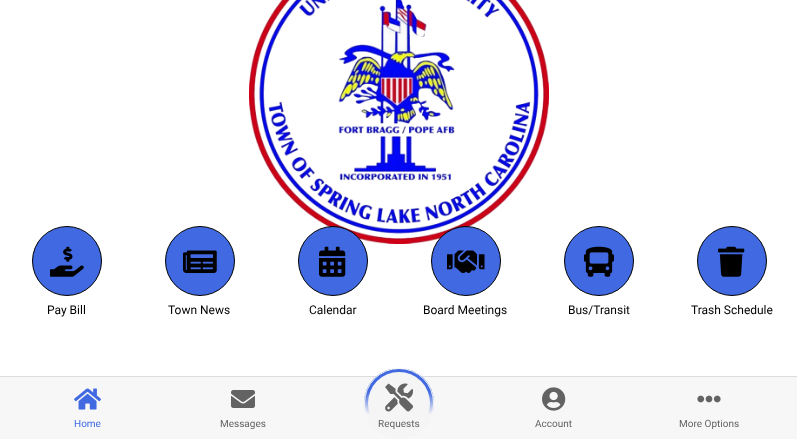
<svg xmlns="http://www.w3.org/2000/svg" width="797" height="439">
	<defs>
		<clipPath id="clip1"><rect x="364" y="368" width="70" height="70" rx="35" /></clipPath>
		<linearGradient id="g1" gradientUnits="userSpaceOnUse" x1="399" y1="369" x2="399" y2="437"><stop offset="0" stop-color="#4169E1" /><stop offset="0.33" stop-color="#4169E1" /><stop offset="0.67" stop-color="#F5F5F5" /><stop offset="1" stop-color="#F5F5F5" /></linearGradient>
	</defs>
	<rect width="100%" height="100%" fill="#FFFFFF" />
	<image x="249" y="0" width="300" height="244" href="assets/img1.png" />
	<circle cx="67" cy="261" r="34.5" fill="#4169E1" stroke="#000000" />
	<image x="50" y="246" width="34" height="31" href="assets/img2.png" />
	<text x="47" y="314" font-family="Roboto" font-size="12" fill="#000000">Pay Bill</text>
	<circle cx="200" cy="261" r="34.5" fill="#4169E1" stroke="#000000" />
	<image x="183" y="250" width="34" height="23" href="assets/img3.png" />
	<text x="168" y="314" font-family="Roboto" font-size="12" fill="#000000">Town News</text>
	<circle cx="333" cy="261" r="34.5" fill="#4169E1" stroke="#000000" />
	<image x="319" y="246" width="27" height="31" href="assets/img4.png" />
	<text x="309" y="314" font-family="Roboto" font-size="12" fill="#000000">Calendar</text>
	<circle cx="466" cy="261" r="34.5" fill="#4169E1" stroke="#000000" />
	<image x="447" y="250" width="38" height="23" href="assets/img5.png" />
	<text x="423" y="314" font-family="Roboto" font-size="12" fill="#000000">Board Meetings</text>
	<circle cx="599" cy="261" r="34.5" fill="#4169E1" stroke="#000000" />
	<image x="584" y="246" width="30" height="31" href="assets/img6.png" />
	<text x="568" y="314" font-family="Roboto" font-size="12" fill="#000000">Bus/Transit</text>
	<circle cx="732" cy="261" r="34.5" fill="#4169E1" stroke="#000000" />
	<image x="718" y="246" width="27" height="31" href="assets/img7.png" />
	<text x="691" y="314" font-family="Roboto" font-size="12" fill="#000000">Trash Schedule</text>
	<rect x="0" y="377" width="797" height="62" fill="#F7F7F7" />
	<rect x="0" y="376" width="797" height="1" fill="#DDDDDD" />
	<image x="74" y="388" width="27" height="22" href="assets/img8.png" />
	<text x="74" y="427" font-family="Roboto" font-size="10" fill="#4169E1">Home</text>
	<image x="231" y="390" width="24" height="18" href="assets/img9.png" />
	<text x="220" y="427" font-family="Roboto" font-size="10" fill="#636363">Messages</text>
	<rect x="364" y="368" width="70" height="71" rx="35" fill="#F5F5F5" />
	<g clip-path="url(#clip1)">
		<rect x="364" y="369" width="70" height="68" fill="url(#g1)" />
	</g>
	<circle cx="399" cy="403" r="34.5" fill="none" stroke="#F5F5F5" />
	<circle cx="399" cy="403" r="31" fill="#F5F5F5" />
	<image x="385" y="383" width="29" height="29" href="assets/img10.png" />
	<text x="378" y="427" font-family="Roboto" font-size="10" fill="#636363">Requests</text>
	<image x="542" y="387" width="24" height="24" href="assets/img11.png" />
	<text x="535" y="427" font-family="Roboto" font-size="10" fill="#636363">Account</text>
	<image x="697" y="395" width="24" height="8" href="assets/img12.png" />
	<text x="679" y="427" font-family="Roboto" font-size="10" fill="#636363">More Options</text>
</svg>
